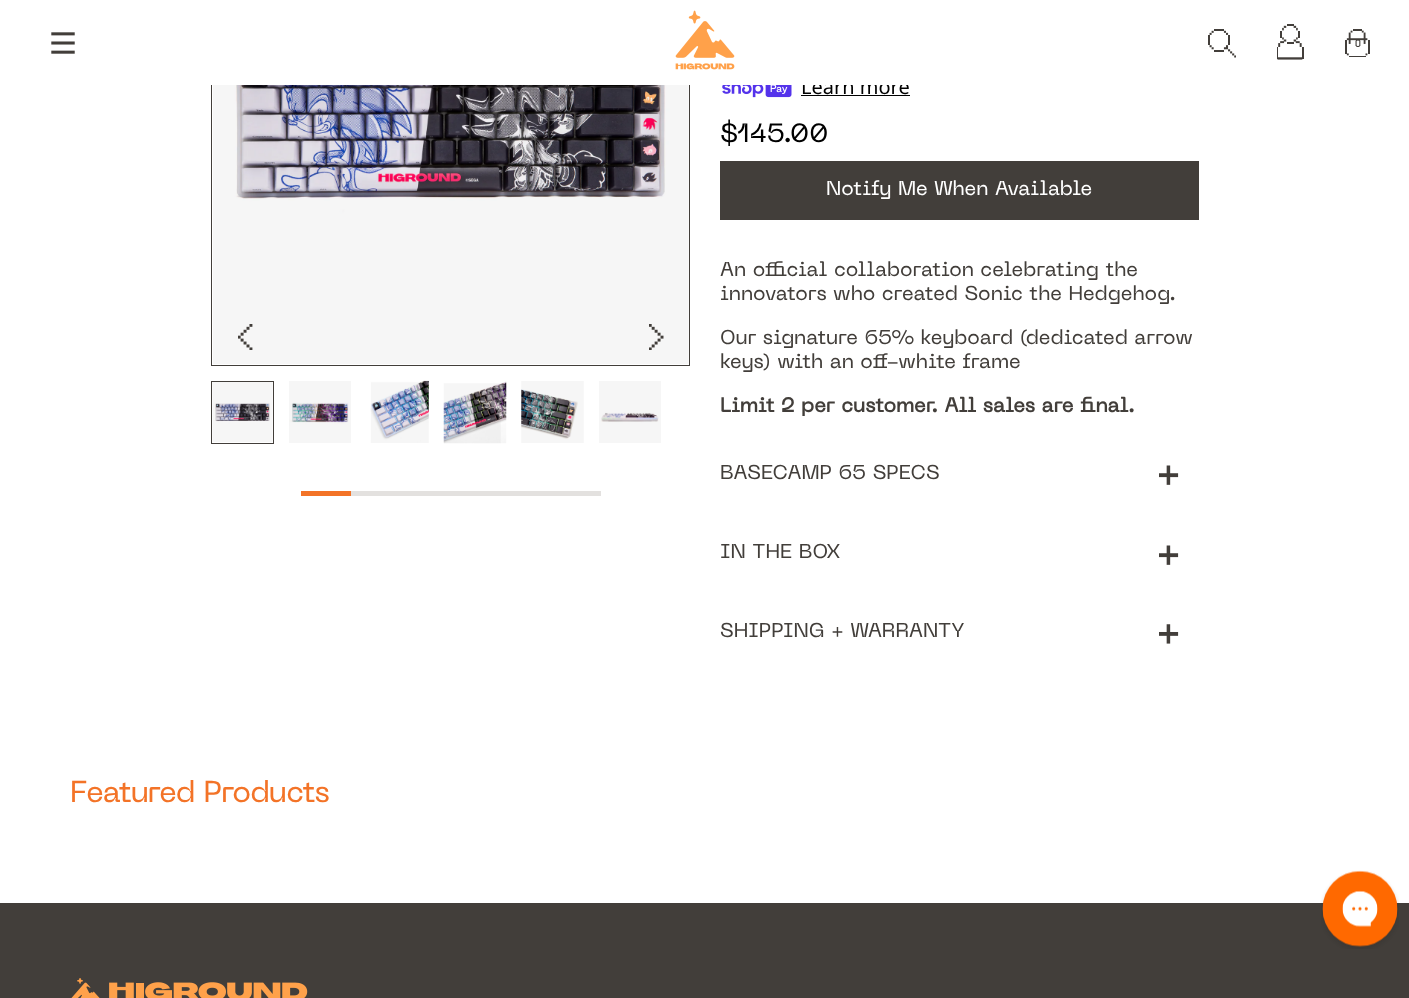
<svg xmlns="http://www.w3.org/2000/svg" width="1409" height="998">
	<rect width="100%" height="100%" fill="#FFFFFF" />
	<rect x="211.5" y="-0.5" width="478" height="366" fill="none" stroke="#423E3A" />
	<text x="801" y="94" font-family="Noto Sans" font-size="20" fill="#000000">Learn more</text>
	<rect x="211" y="0" width="698" height="85" fill="#FFFFFF" />
	<image x="51" y="32" width="24" height="22" href="assets/img1.png" />
	<image x="675" y="10" width="60" height="60" href="assets/img2.png" />
	<image x="1208" y="29" width="28" height="29" href="assets/img3.png" />
	<image x="1277" y="24" width="27" height="36" href="assets/img4.png" />
	<image x="1345" y="29" width="25" height="28" href="assets/img5.png" />
	<text x="1355" y="47" font-family="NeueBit" font-size="15" font-weight="700" fill="#423E3A">0</text>
	<image x="213" y="85" width="476" height="279" href="assets/img6.png" />
	<image x="238" y="324" width="15" height="26" href="assets/img7.png" />
	<image x="649" y="324" width="15" height="26" href="assets/img8.png" />
	<rect x="211.5" y="381.5" width="62" height="62" fill="none" stroke="#423E3A" />
	<image x="212" y="382" width="61" height="60" href="assets/img9.png" />
	<image x="289" y="381" width="62" height="62" href="assets/img10.png" />
	<image x="370" y="380" width="59" height="63" href="assets/img11.png" />
	<image x="443" y="381" width="64" height="63" href="assets/img12.png" />
	<image x="521" y="381" width="63" height="62" href="assets/img13.png" />
	<image x="599" y="381" width="62" height="62" href="assets/img14.png" />
	<rect x="301" y="491" width="50" height="5" fill="#F37327" />
	<rect x="351" y="491" width="250" height="5" fill="#E3E1DF" />
	<image x="722" y="85" width="70" height="13" href="assets/img15.png" />
	<rect x="801" y="95" width="109" height="1" fill="#000000" />
	<text x="720" y="142" font-family="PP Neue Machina" font-size="26.25" fill="#000000">$145.00</text>
	<rect x="720" y="161" width="479" height="59" fill="#423E3A" />
	<text x="826" y="195" font-family="PP Neue Machina" font-size="20" fill="#FFFFFF">Notify Me When Available</text>
	<g font-family="PP Neue Machina" font-size="20" fill="#423E3A">
		<text x="720" y="276">An official collaboration celebrating the</text>
		<text x="720" y="300">innovators who created Sonic the Hedgehog.</text>
		<text x="720" y="344">Our signature 65% keyboard (dedicated arrow</text>
		<text x="720" y="368">keys) with an off-white frame</text>
	</g>
	<text x="720" y="412" font-family="PP Neue Machina" font-size="20" font-weight="700" fill="#423E3A">Limit 2 per customer. All sales are final.</text>
	<text x="720" y="479" font-family="PP Neue Machina" font-size="20" fill="#423E3A">BASECAMP 65 SPECS</text>
	<image x="1159" y="465" width="20" height="20" href="assets/img16.png" />
	<text x="720" y="558" font-family="PP Neue Machina" font-size="20" fill="#423E3A">IN THE BOX</text>
	<image x="1159" y="545" width="20" height="20" href="assets/img16.png" />
	<text x="720" y="637" font-family="PP Neue Machina" font-size="20" fill="#423E3A">SHIPPING + WARRANTY</text>
	<image x="1159" y="624" width="20" height="20" href="assets/img17.png" />
	<text x="70" y="802" font-family="PP Neue Machina" font-size="30" letter-spacing="-0.9" fill="#F37327">Featured Products</text>
	<rect x="0" y="903" width="1409" height="95" fill="#423E3A" />
	<image x="1321" y="870" width="78" height="79" href="assets/img18.png" />
	<image x="71" y="978" width="237" height="20" href="assets/img19.png" />
</svg>
